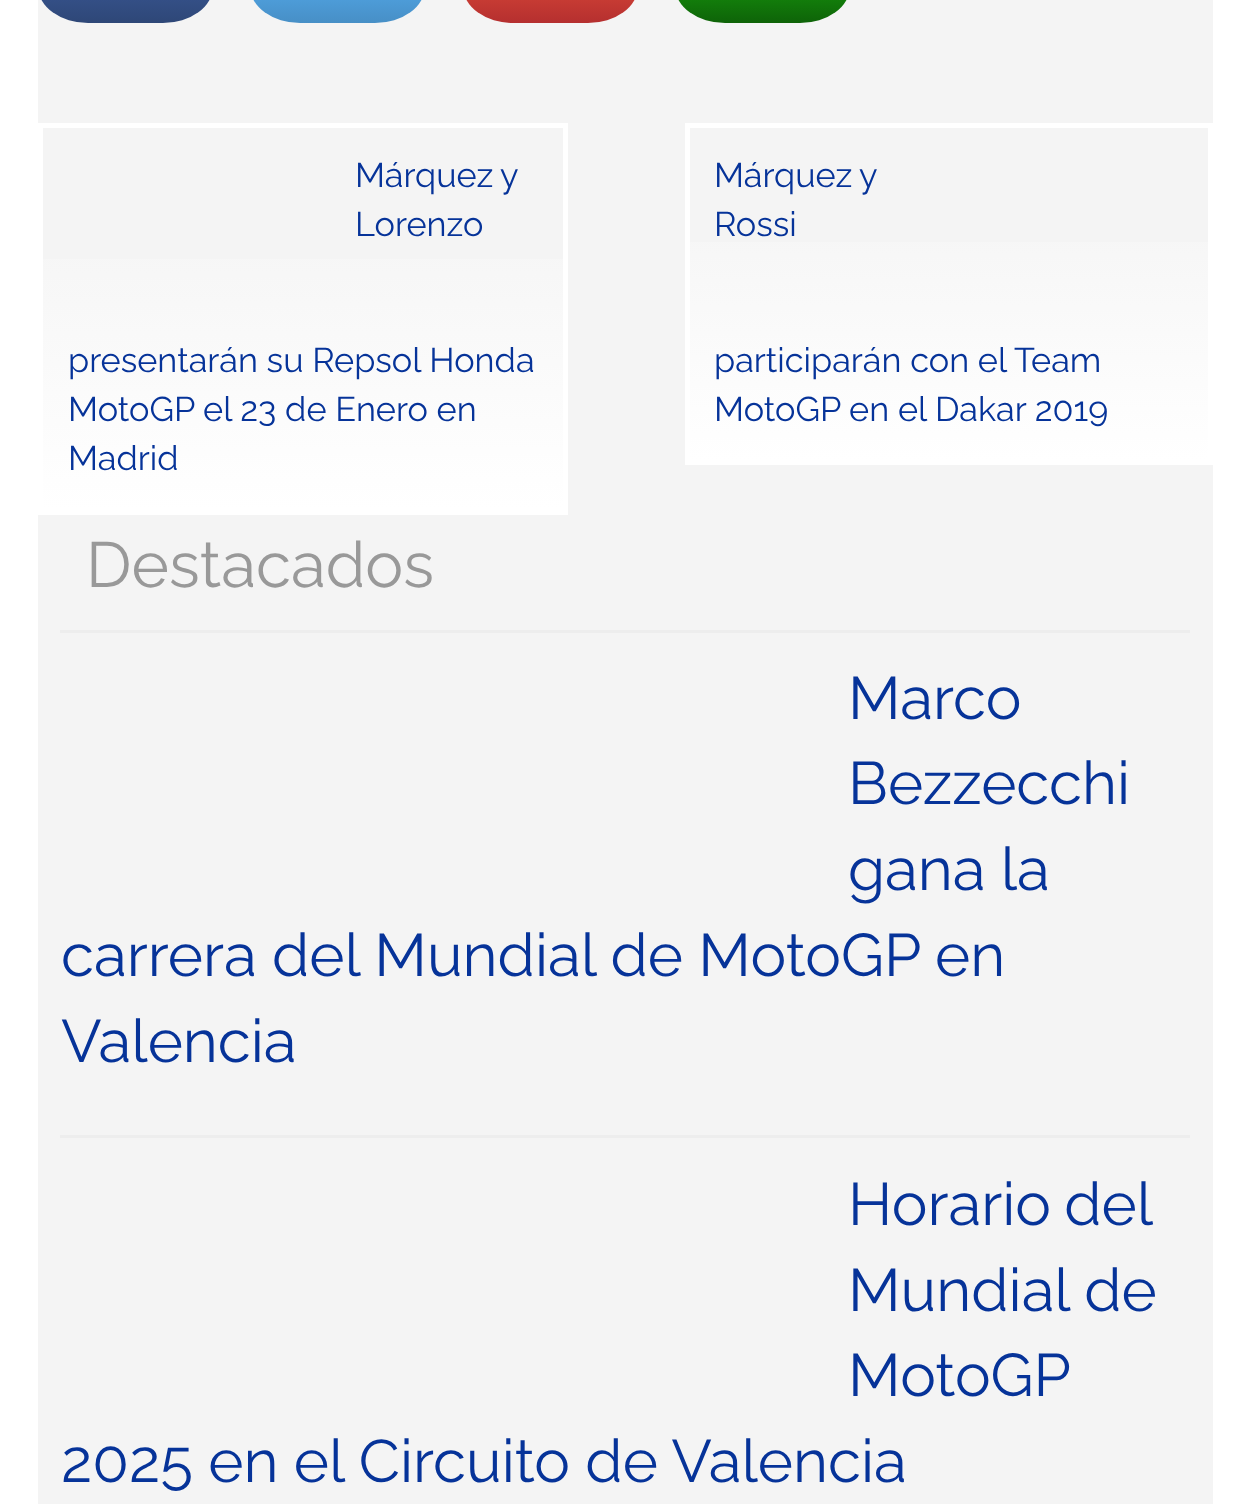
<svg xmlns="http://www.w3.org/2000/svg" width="1248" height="1504">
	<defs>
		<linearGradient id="g1" gradientUnits="userSpaceOnUse" x1="625" y1="-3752" x2="625" y2="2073"><stop offset="0" stop-color="#EAEAEA" /><stop offset="0.05" stop-color="#F4F4F4" /><stop offset="1" stop-color="#F4F4F4" /></linearGradient>
		<linearGradient id="g2" gradientUnits="userSpaceOnUse" x1="125" y1="-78" x2="125" y2="23"><stop offset="0" stop-color="#3B5998" /><stop offset="0.48" stop-color="#3B5998" /><stop offset="1" stop-color="#2E4777" /></linearGradient>
		<linearGradient id="g3" gradientUnits="userSpaceOnUse" x1="338" y1="-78" x2="338" y2="23"><stop offset="0" stop-color="#55ACEE" /><stop offset="0.48" stop-color="#55ACEE" /><stop offset="1" stop-color="#478FC6" /></linearGradient>
		<linearGradient id="g4" gradientUnits="userSpaceOnUse" x1="550" y1="-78" x2="550" y2="23"><stop offset="0" stop-color="#DD4B39" /><stop offset="0.47" stop-color="#DD4B39" /><stop offset="1" stop-color="#B52F2F" /></linearGradient>
		<linearGradient id="g5" gradientUnits="userSpaceOnUse" x1="763" y1="-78" x2="763" y2="23"><stop offset="0" stop-color="#189D0E" /><stop offset="0.47" stop-color="#189D0E" /><stop offset="1" stop-color="#0E6308" /></linearGradient>
		<linearGradient id="g6" gradientUnits="userSpaceOnUse" x1="302" y1="127" x2="303" y2="510"><stop offset="0" stop-color="#F2F2F2" /><stop offset="1" stop-color="#FFFFFF" /></linearGradient>
		<linearGradient id="g7" gradientUnits="userSpaceOnUse" x1="949" y1="127" x2="949" y2="460"><stop offset="0" stop-color="#F2F2F2" /><stop offset="1" stop-color="#FFFFFF" /></linearGradient>
	</defs>
	<rect width="100%" height="100%" fill="#FFFFFF" />
	<rect x="38" y="0" width="1175" height="1504" fill="url(#g1)" />
	<rect x="38" y="-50" width="175" height="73" rx="50" fill="url(#g2)" />
	<rect x="250" y="-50" width="175" height="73" rx="50" fill="url(#g3)" />
	<rect x="463" y="-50" width="175" height="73" rx="50" fill="url(#g4)" />
	<rect x="675" y="-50" width="175" height="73" rx="50" fill="url(#g5)" />
	<rect x="43" y="259" width="520" height="251" fill="url(#g6)" />
	<rect x="40.5" y="125.5" width="525" height="387" fill="none" stroke="#FFFFFF" stroke-width="5" />
	<g font-family="Raleway" font-size="34.25" fill="#063399">
		<text x="355" y="187" word-spacing="-1">Márquez y</text>
		<text x="355" y="236">Lorenzo</text>
		<text x="68" y="372">presentarán su Repsol Honda</text>
		<text x="68" y="421">MotoGP el 23 de Enero en</text>
		<text x="68" y="470">Madrid</text>
	</g>
	<rect x="690" y="242" width="518" height="218" fill="url(#g7)" />
	<rect x="687.5" y="125.5" width="523" height="337" fill="none" stroke="#FFFFFF" stroke-width="5" />
	<g font-family="Raleway" font-size="34.25" fill="#063399">
		<text x="714" y="187" word-spacing="-1">Márquez y</text>
		<text x="714" y="236">Rossi</text>
		<text x="714" y="372">participarán con el Team</text>
		<text x="714" y="421">MotoGP en el Dakar 2019</text>
	</g>
	<text x="86" y="587" font-family="Raleway" font-size="63.75" fill="#999999">Destacados</text>
	<rect x="60" y="630" width="1130" height="3" fill="#EDEDED" />
	<g font-family="Raleway" font-size="60" fill="#063399">
		<text x="848" y="719">Marco</text>
		<text x="848" y="804">Bezzecchi</text>
		<text x="848" y="890">gana la</text>
		<text x="61" y="976">carrera del Mundial de MotoGP en</text>
		<text x="61" y="1062">Valencia</text>
	</g>
	<rect x="60" y="1135" width="1130" height="3" fill="#EDEDED" />
	<g font-family="Raleway" font-size="60" fill="#063399">
		<text x="848" y="1225" word-spacing="-2">Horario del</text>
		<text x="848" y="1311">Mundial de</text>
		<text x="848" y="1396">MotoGP</text>
		<text x="61" y="1482">2025 en el Circuito de Valencia</text>
	</g>
</svg>
